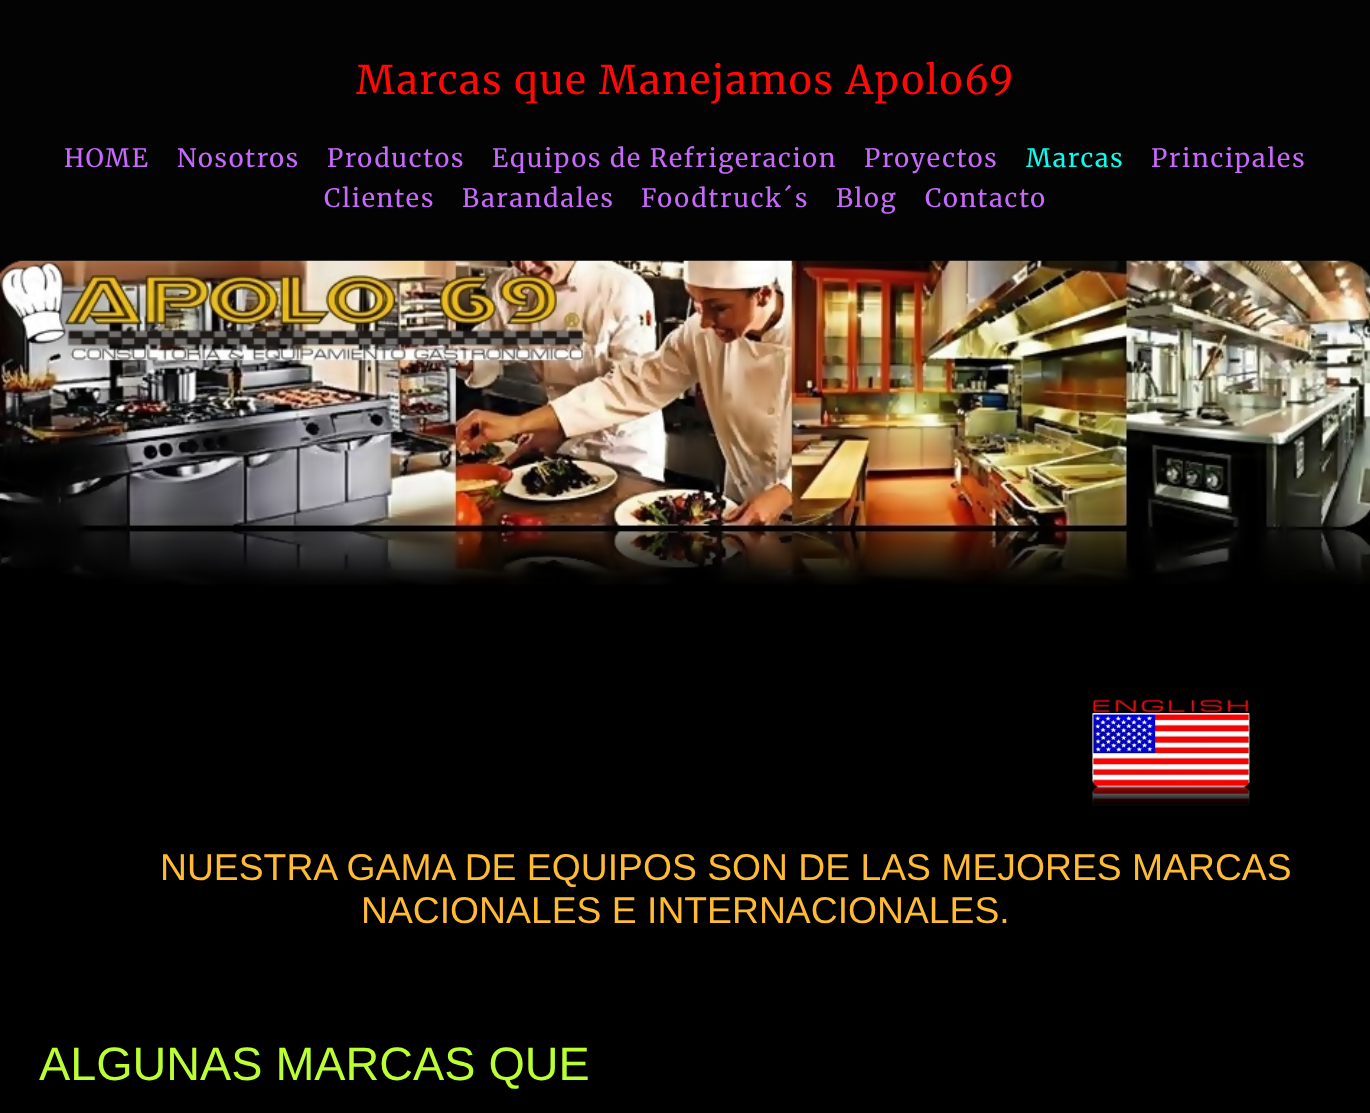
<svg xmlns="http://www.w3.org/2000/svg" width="1370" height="1113">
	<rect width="100%" height="100%" fill="#030303" />
	<text x="356" y="94" font-family="Merriweather" font-size="39.25" letter-spacing="1.75" fill="#FF0808">Marcas que Manejamos Apolo69</text>
	<g font-family="Merriweather" font-size="25.25" letter-spacing="1.75" fill="#C769FA">
		<text x="64" y="167">HOME</text>
		<text x="177" y="167">Nosotros</text>
		<text x="327" y="167">Productos</text>
		<text x="492" y="167">Equipos de Refrigeracion</text>
		<text x="864" y="167">Proyectos</text>
	</g>
	<text x="1026" y="167" font-family="Merriweather" font-size="25.25" letter-spacing="1.75" fill="#08FFEF">Marcas</text>
	<g font-family="Merriweather" font-size="25.25" letter-spacing="1.75" fill="#C769FA">
		<text x="1151" y="167">Principales</text>
		<text x="324" y="207">Clientes</text>
		<text x="462" y="207">Barandales</text>
		<text x="641" y="207">Foodtruck´s</text>
		<text x="836" y="207">Blog</text>
		<text x="925" y="207">Contacto</text>
	</g>
	<rect x="0" y="584" width="1370" height="529" fill="#000000" />
	<image x="0" y="260" width="1370" height="325" href="assets/img1.png" />
	<image x="1092" y="699" width="158" height="107" href="assets/img2.png" />
	<g font-family="Liberation Sans" font-size="37.3" fill="#FFBB33">
		<text x="160" y="880">NUESTRA GAMA DE EQUIPOS SON DE LAS MEJORES MARCAS</text>
		<text x="361" y="923">NACIONALES E INTERNACIONALES.</text>
	</g>
	<text x="39" y="1080" font-family="Liberation Sans" font-size="46.75" fill="#BBFF33">ALGUNAS MARCAS QUE</text>
</svg>
